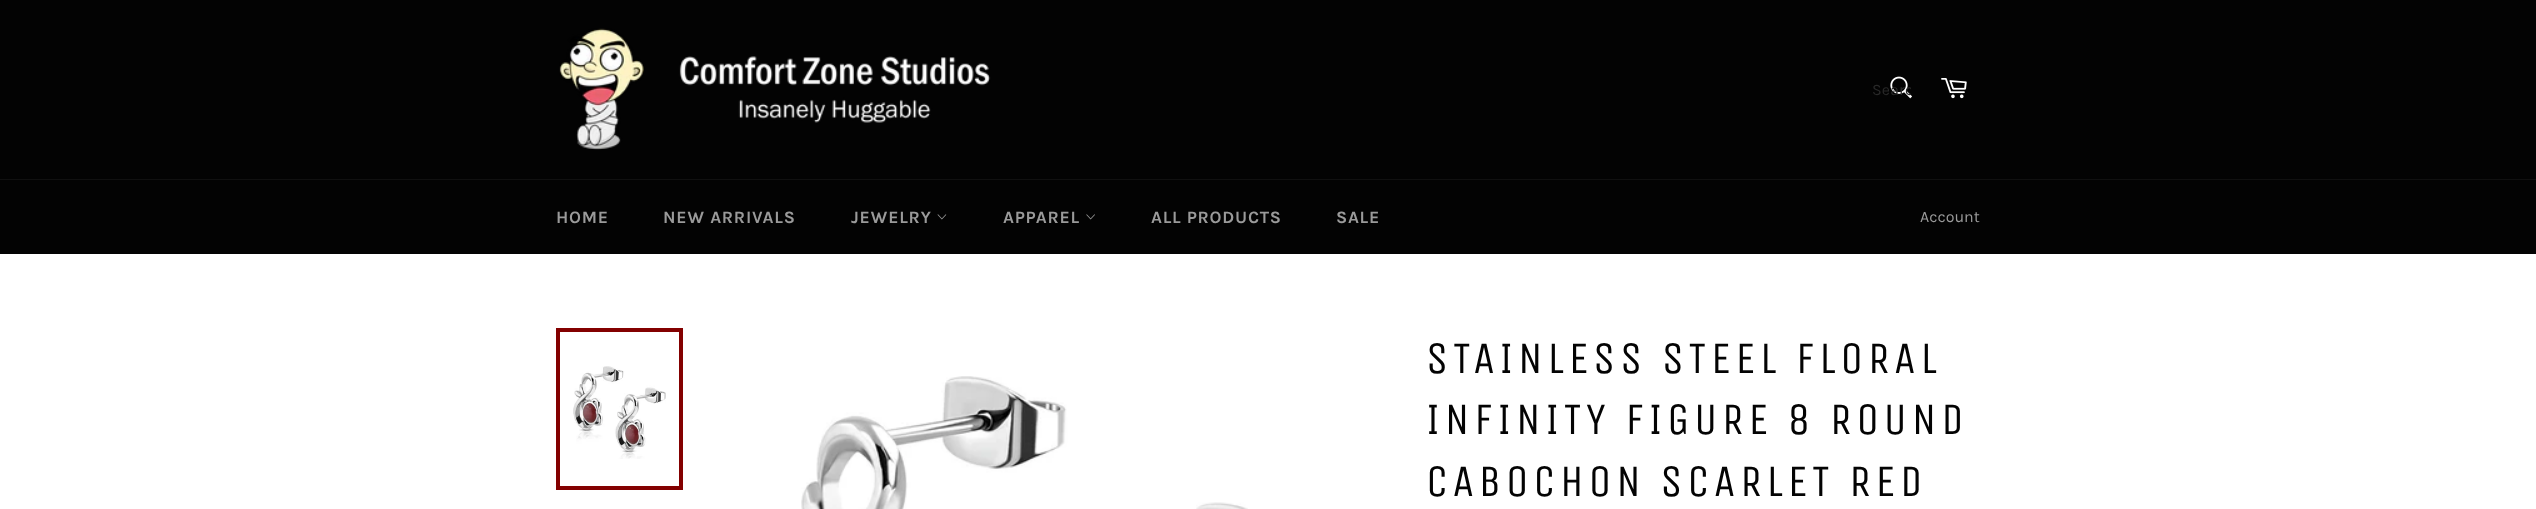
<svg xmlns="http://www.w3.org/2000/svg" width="2536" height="509">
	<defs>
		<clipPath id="clip1"><rect x="1871" y="80" width="40" height="19" /></clipPath>
	</defs>
	<rect width="100%" height="100%" fill="#030303" />
	<image x="559" y="28" width="432" height="122" href="assets/img1.png" />
	<image x="1890" y="76" width="22" height="23" href="assets/img2.png" />
	<g clip-path="url(#clip1)">
		<text x="1872" y="95" font-family="Karla" font-size="16" fill="#292929">Searc</text>
	</g>
	<image x="1941" y="78" width="26" height="21" href="assets/img3.png" />
	<rect x="0" y="179" width="2536" height="1" fill="#101010" />
	<g font-family="Karla" font-size="17.5" font-weight="700" letter-spacing="0.75" fill="#9A9A9A">
		<text x="556" y="223">HOME</text>
		<text x="663" y="223">NEW ARRIVALS</text>
		<text x="851" y="223">JEWELRY</text>
	</g>
	<image x="937" y="214" width="10" height="6" href="assets/img4.png" />
	<text x="1003" y="223" font-family="Karla" font-size="17.5" font-weight="700" letter-spacing="0.75" fill="#9A9A9A">APPAREL</text>
	<image x="1086" y="214" width="9" height="6" href="assets/img5.png" />
	<g font-family="Karla" font-size="17.5" font-weight="700" letter-spacing="0.75" fill="#9A9A9A">
		<text x="1151" y="223">ALL PRODUCTS</text>
		<text x="1336" y="223">SALE</text>
	</g>
	<text x="1920" y="222" font-family="Karla" font-size="16" fill="#9A9A9A">Account</text>
	<rect x="0" y="254" width="2536" height="255" fill="#FFFFFF" />
	<image x="573" y="366" width="93" height="93" href="assets/img6.png" />
	<rect x="558" y="330" width="123" height="158" fill="none" stroke="#830000" stroke-width="4" />
	<image x="801" y="376" width="447" height="133" href="assets/img7.png" />
	<g font-family="Unica One" font-size="45" letter-spacing="4.5" fill="#030303">
		<text x="1426" y="373">STAINLESS STEEL FLORAL</text>
		<text x="1426" y="434">INFINITY FIGURE 8 ROUND</text>
		<text x="1426" y="496">CABOCHON SCARLET RED</text>
	</g>
</svg>
